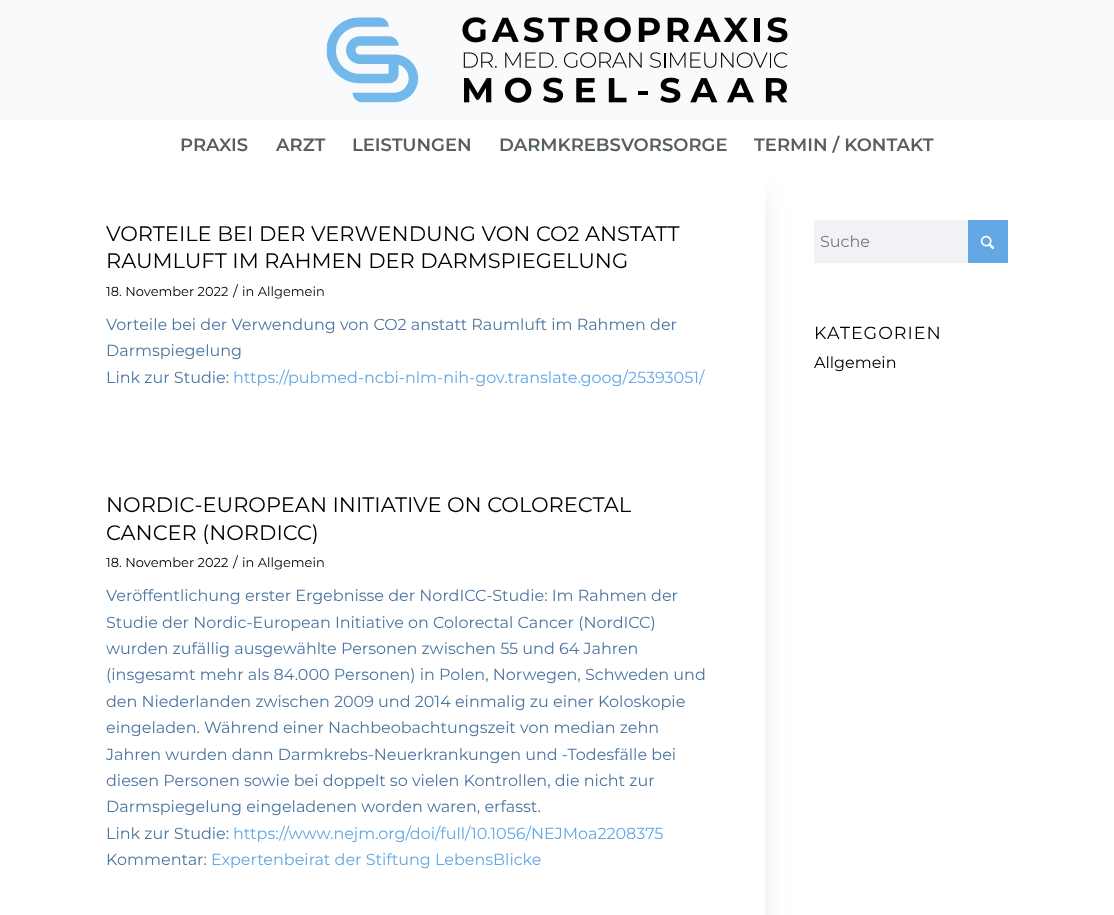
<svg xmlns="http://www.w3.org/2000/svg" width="1114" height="915">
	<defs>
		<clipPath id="clip1"><rect x="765" y="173" width="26" height="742" /></clipPath>
	</defs>
	<rect width="100%" height="100%" fill="#F9FAFC" />
	<image x="326" y="17" width="462" height="86" href="assets/img1.png" />
	<rect x="0" y="170" width="1114" height="745" fill="#FFFFFF" />
	<g clip-path="url(#clip1)">
		<rect x="156" y="195" width="609" height="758" fill="#E9E9EB" filter="blur(12.5px)" />
	</g>
	<rect x="0" y="120" width="1114" height="50" fill="#FFFFFF" />
	<g font-family="Montserrat" font-size="18" font-weight="600" fill="#566061">
		<text x="180" y="151">PRAXIS</text>
		<text x="276" y="151">ARZT</text>
		<text x="352" y="151">LEISTUNGEN</text>
		<text x="499" y="151">DARMKREBSVORSORGE</text>
		<text x="754" y="151">TERMIN / KONTAKT</text>
	</g>
	<g font-family="Montserrat" font-size="21" fill="#000000">
		<text x="106" y="241">VORTEILE BEI DER VERWENDUNG VON CO2 ANSTATT</text>
		<text x="106" y="268">RAUMLUFT IM RAHMEN DER DARMSPIEGELUNG</text>
	</g>
	<text x="106" y="296" font-family="Montserrat" font-size="13" fill="#000000">18. November 2022</text>
	<text x="233" y="296" font-family="Montserrat" font-size="14" fill="#000000">/</text>
	<text x="242" y="296" font-family="Montserrat" font-size="13" fill="#000000">in Allgemein</text>
	<g font-family="Montserrat" font-size="16" fill="#4C76A2">
		<text x="106" y="330">Vorteile bei der Verwendung von CO2 anstatt Raumluft im Rahmen der</text>
		<text x="106" y="356">Darmspiegelung</text>
		<text x="106" y="383">Link zur Studie:</text>
	</g>
	<text x="233" y="383" font-family="Montserrat" font-size="16" fill="#62A8E5">https://pubmed-ncbi-nlm-nih-gov.translate.goog/25393051/</text>
	<g font-family="Montserrat" font-size="21" fill="#000000">
		<text x="106" y="512">NORDIC-EUROPEAN INITIATIVE ON COLORECTAL</text>
		<text x="106" y="540">CANCER (NORDICC)</text>
	</g>
	<text x="106" y="567" font-family="Montserrat" font-size="13" fill="#000000">18. November 2022</text>
	<text x="233" y="567" font-family="Montserrat" font-size="14" fill="#000000">/</text>
	<text x="242" y="567" font-family="Montserrat" font-size="13" fill="#000000">in Allgemein</text>
	<g font-family="Montserrat" font-size="16" fill="#4C76A2">
		<text x="106" y="601">Veröffentlichung erster Ergebnisse der NordICC-Studie: Im Rahmen der</text>
		<text x="106" y="628">Studie der Nordic-European Initiative on Colorectal Cancer (NordICC)</text>
		<text x="106" y="654">wurden zufällig ausgewählte Personen zwischen 55 und 64 Jahren</text>
		<text x="106" y="680">(insgesamt mehr als 84.000 Personen) in Polen, Norwegen, Schweden und</text>
		<text x="106" y="707">den Niederlanden zwischen 2009 und 2014 einmalig zu einer Koloskopie</text>
		<text x="106" y="733">eingeladen. Während einer Nachbeobachtungszeit von median zehn</text>
		<text x="106" y="760">Jahren wurden dann Darmkrebs-Neuerkrankungen und -Todesfälle bei</text>
		<text x="106" y="786">diesen Personen sowie bei doppelt so vielen Kontrollen, die nicht zur</text>
		<text x="106" y="812">Darmspiegelung eingeladenen worden waren, erfasst.</text>
		<text x="106" y="839">Link zur Studie:</text>
	</g>
	<text x="233" y="839" font-family="Montserrat" font-size="16" fill="#62A8E5">https://www.nejm.org/doi/full/10.1056/NEJMoa2208375</text>
	<text x="106" y="865" font-family="Montserrat" font-size="16" fill="#4C76A2">Kommentar:</text>
	<text x="211" y="865" font-family="Montserrat" font-size="16" fill="#62A8E5">Expertenbeirat der Stiftung LebensBlicke</text>
	<rect x="815" y="221" width="153" height="41" fill="#F0F2F5" />
	<rect x="814.5" y="220.5" width="193" height="42" fill="none" stroke="#F2F4F1" />
	<text x="820" y="247" font-family="Montserrat" font-size="16" fill="#78797B">Suche</text>
	<rect x="968" y="220" width="40" height="43" fill="#62A8E5" />
	<image x="980" y="235" width="15" height="15" href="assets/img2.png" />
	<text x="814" y="339" font-family="Montserrat" font-size="17.5" letter-spacing="1" fill="#000000">KATEGORIEN</text>
	<text x="814" y="368" font-family="Montserrat" font-size="16" fill="#000000">Allgemein</text>
</svg>
